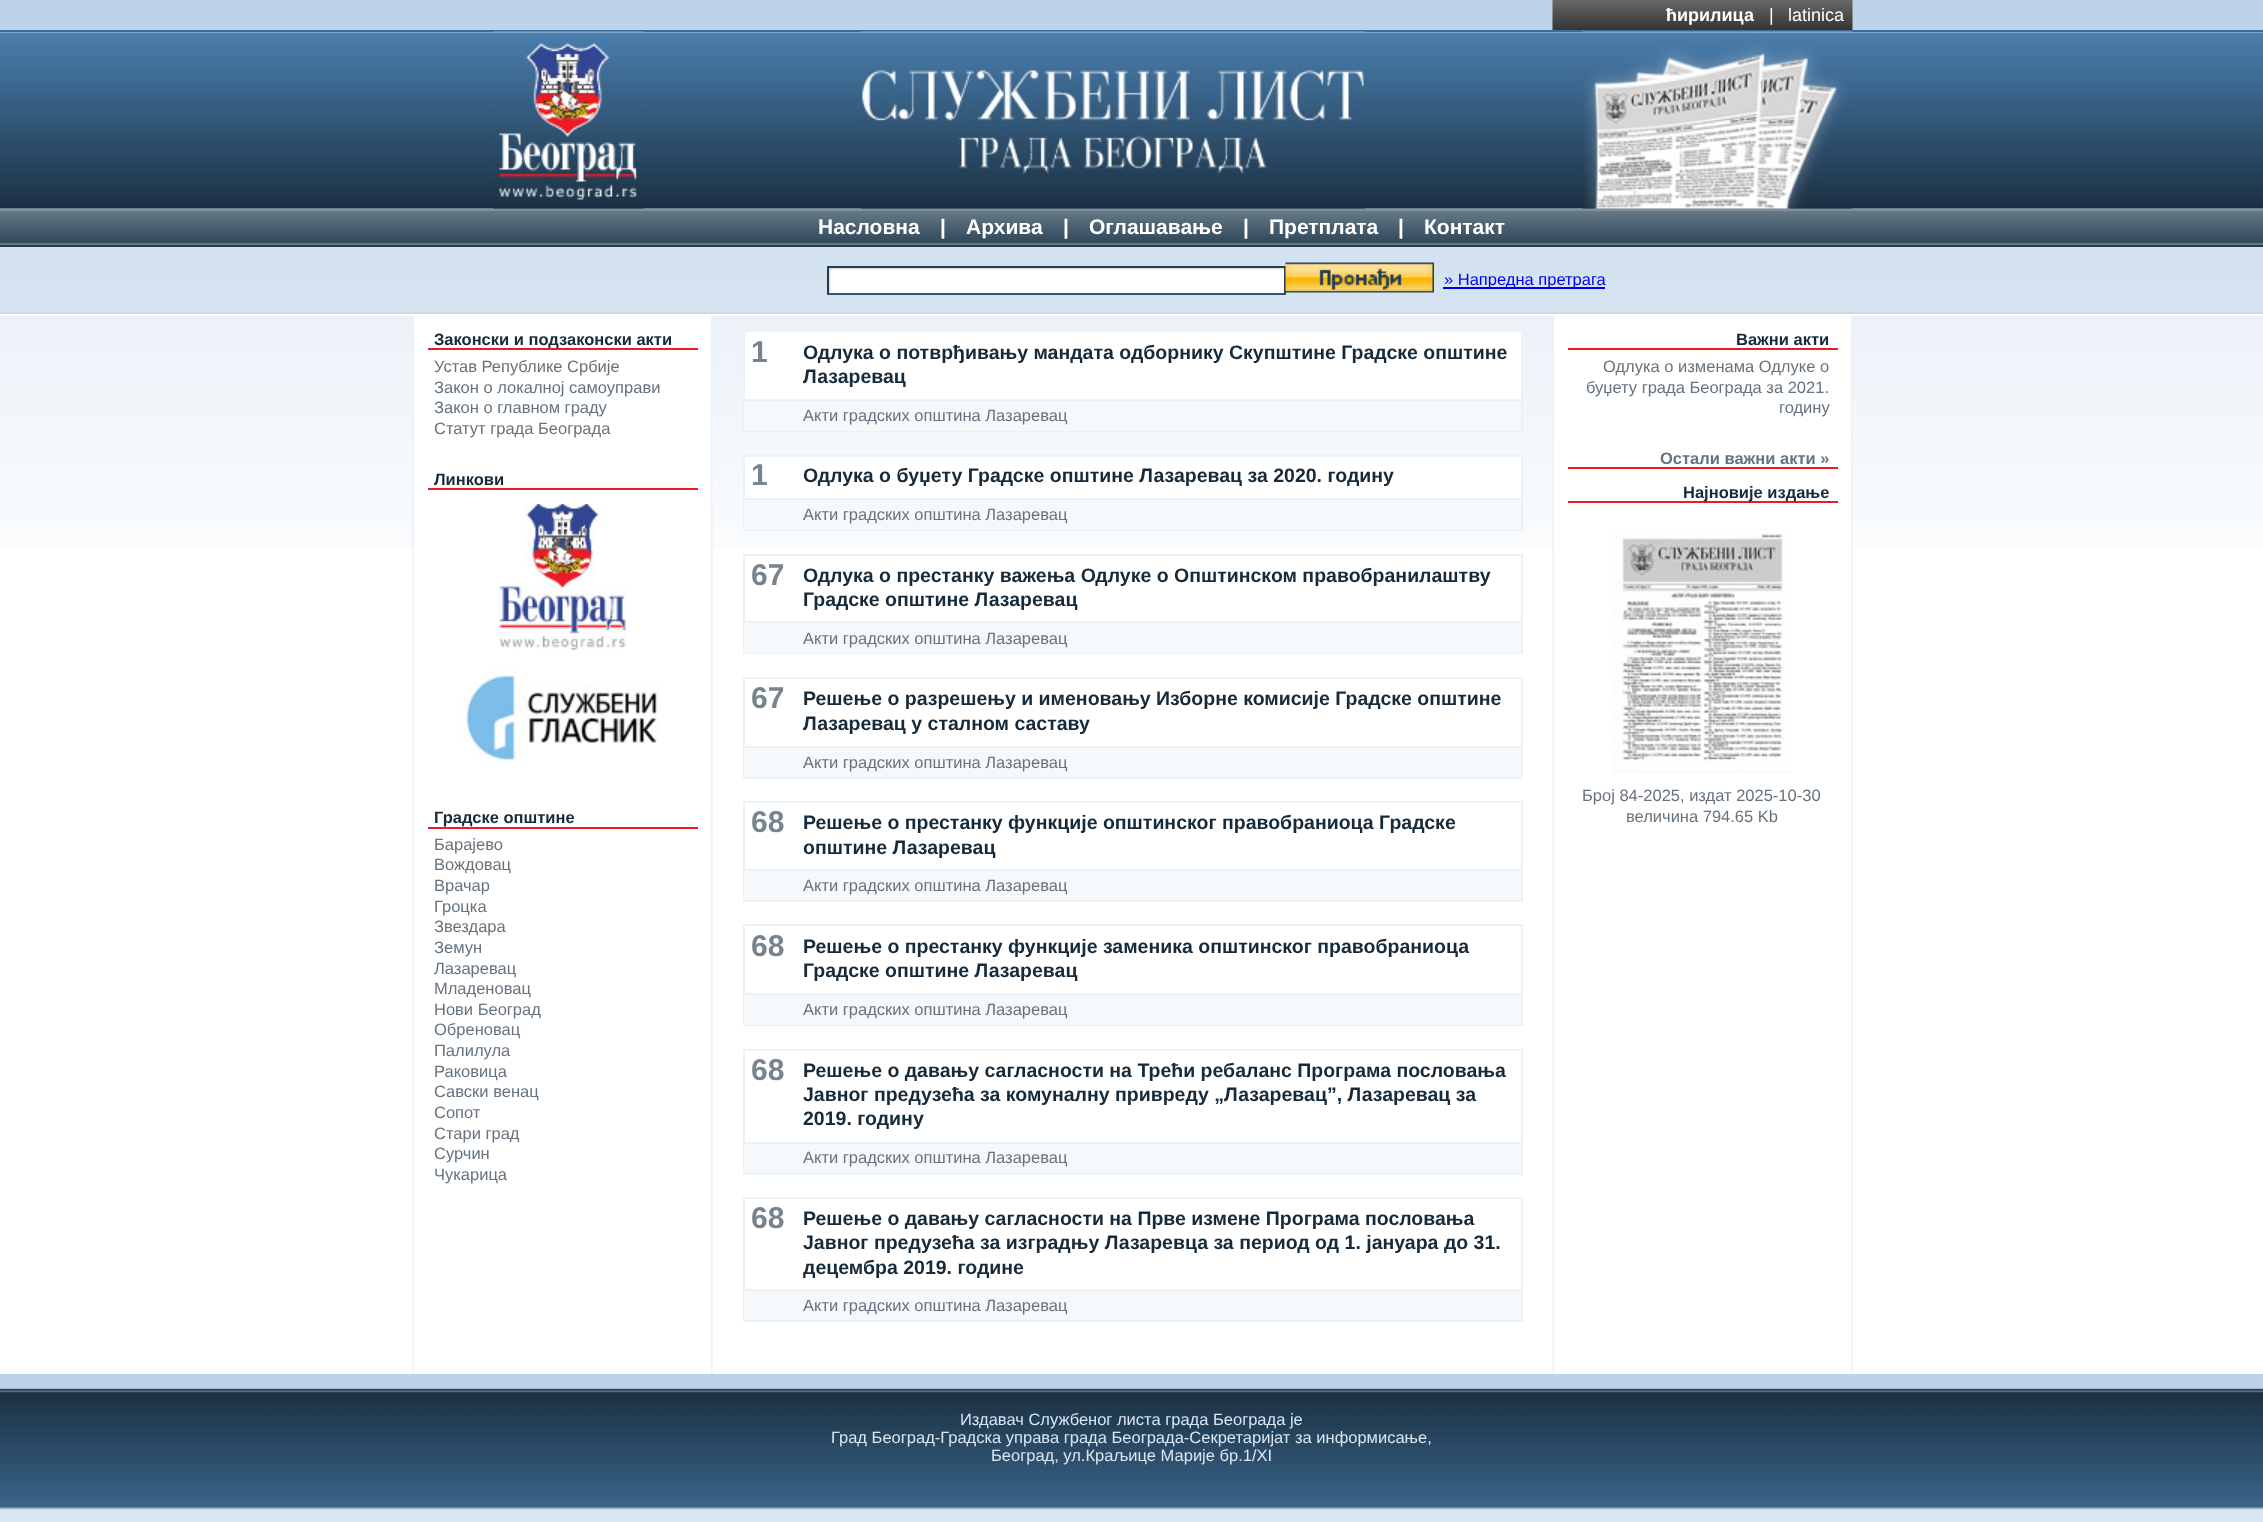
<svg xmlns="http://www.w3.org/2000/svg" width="2263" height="1522">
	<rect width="100%" height="100%" fill="#DAE6F2" />
	<image x="0" y="0" width="2263" height="312" href="assets/img1.png" />
	<image x="1552" y="0" width="301" height="30" href="assets/img2.png" />
	<text x="1666" y="21" font-family="Liberation Sans" font-size="18" font-weight="700" fill="#FFFFFF">ћирилица</text>
	<g font-family="Liberation Sans" font-size="18" fill="#FFFFFF">
		<text x="1769" y="21">|</text>
		<text x="1788" y="21">latinica</text>
	</g>
	<image x="0" y="32" width="2263" height="177" href="assets/img3.png" />
	<rect x="0" y="30" width="2263" height="2" fill="#3E6A93" />
	<image x="0" y="208" width="2263" height="35" href="assets/img7.png" />
	<image x="493" y="31" width="151" height="178" href="assets/img4.png" />
	<image x="861" y="31" width="504" height="178" href="assets/img5.png" />
	<image x="1582" y="31" width="271" height="178" href="assets/img6.png" />
	<rect x="0" y="209" width="2263" height="2" fill="#828E98" />
	<rect x="0" y="243" width="2263" height="2" fill="#627583" />
	<g font-family="Liberation Sans" font-size="21" font-weight="700" fill="#FFFFFF">
		<text x="818" y="234">Насловна</text>
		<text x="940" y="234">|</text>
		<text x="966" y="234">Архива</text>
		<text x="1063" y="234">|</text>
		<text x="1089" y="234">Оглашавање</text>
		<text x="1243" y="234">|</text>
		<text x="1269" y="234">Претплата</text>
		<text x="1398" y="234">|</text>
		<text x="1424" y="234">Контакт</text>
	</g>
	<rect x="0" y="245" width="2263" height="2" fill="#273E4F" />
	<rect x="0" y="312" width="2263" height="2" fill="#D2D8DF" />
	<image x="829" y="268" width="455" height="25" href="assets/img8.png" />
	<rect x="827" y="266" width="459" height="2" fill="#203C50" />
	<rect x="1284" y="266" width="2" height="28" fill="#203C50" />
	<rect x="827" y="293" width="459" height="2" fill="#2F5774" />
	<rect x="827" y="266" width="2" height="28" fill="#203C50" />
	<image x="1285" y="262" width="149" height="31" href="assets/img9.png" />
	<rect x="1443" y="287" width="162" height="2" fill="#0000EE" />
	<text x="1444" y="285" font-family="Liberation Sans" font-size="16.5" fill="#0000EE">» Напредна претрага</text>
	<rect x="0" y="549" width="2263" height="825" fill="#FFFFFF" />
	<image x="0" y="316" width="2263" height="233" href="assets/img10.png" />
	<rect x="0" y="314" width="2263" height="2" fill="#FFFFFF" />
	<image x="412" y="315" width="1441" height="1059" href="assets/img11.png" />
	<rect x="428" y="348" width="270" height="2" fill="#EC1C24" />
	<text x="434" y="345" font-family="Liberation Sans" font-size="16.5" font-weight="700" fill="#172A39">Законски и подзаконски акти</text>
	<g font-family="Liberation Sans" font-size="16.5" fill="#66737E">
		<text x="434" y="372">Устав Републике Србије</text>
		<text x="434" y="393">Закон о локалној самоуправи</text>
		<text x="434" y="413">Закон о главном граду</text>
		<text x="434" y="434">Статут града Београда</text>
	</g>
	<rect x="428" y="488" width="270" height="2" fill="#EC1C24" />
	<text x="434" y="485" font-family="Liberation Sans" font-size="16.5" font-weight="700" fill="#172A39">Линкови</text>
	<image x="499" y="504" width="127" height="146" href="assets/img12.png" />
	<image x="462" y="670" width="198" height="95" href="assets/img13.png" />
	<rect x="428" y="827" width="270" height="2" fill="#EC1C24" />
	<text x="434" y="823" font-family="Liberation Sans" font-size="16.5" font-weight="700" fill="#172A39">Градске општине</text>
	<g font-family="Liberation Sans" font-size="16.5" fill="#66737E">
		<text x="434" y="850">Барајево</text>
		<text x="434" y="870">Вождовац</text>
		<text x="434" y="891">Врачар</text>
		<text x="434" y="912">Гроцка</text>
		<text x="434" y="932">Звездара</text>
		<text x="434" y="953">Земун</text>
		<text x="434" y="974">Лазаревац</text>
		<text x="434" y="994">Младеновац</text>
		<text x="434" y="1015">Нови Београд</text>
		<text x="434" y="1035">Обреновац</text>
		<text x="434" y="1056">Палилула</text>
		<text x="434" y="1077">Раковица</text>
		<text x="434" y="1097">Савски венац</text>
		<text x="434" y="1118">Сопот</text>
		<text x="434" y="1139">Стари град</text>
		<text x="434" y="1159">Сурчин</text>
		<text x="434" y="1180">Чукарица</text>
	</g>
	<rect x="745" y="332" width="776" height="67" fill="#FFFFFF" />
	<rect x="744" y="331" width="778" height="100" fill="none" stroke="#EAF1F8" stroke-width="2" />
	<text x="751" y="362" font-family="Liberation Sans" font-size="30" font-weight="700" fill="#77848D">1</text>
	<g font-family="Liberation Sans" font-size="19.5" font-weight="700" fill="#172A39">
		<text x="803" y="359">Одлука о потврђивању мандата одборнику Скупштине Градске општине</text>
		<text x="803" y="383">Лазаревац</text>
	</g>
	<rect x="744" y="401" width="777" height="30" fill="#F5F9FC" />
	<rect x="744" y="399" width="777" height="2" fill="#EAF1F8" />
	<text x="803" y="421" font-family="Liberation Sans" font-size="16.5" fill="#66737E">Акти градских општина Лазаревац</text>
	<rect x="745" y="457" width="776" height="41" fill="#FFFFFF" />
	<rect x="744" y="456" width="778" height="74" fill="none" stroke="#EAF1F8" stroke-width="2" />
	<text x="751" y="485" font-family="Liberation Sans" font-size="30" font-weight="700" fill="#77848D">1</text>
	<text x="803" y="482" font-family="Liberation Sans" font-size="19.5" font-weight="700" fill="#172A39">Одлука о буџету Градске општине Лазаревац за 2020. годину</text>
	<rect x="744" y="500" width="777" height="30" fill="#F5F9FC" />
	<rect x="744" y="498" width="777" height="2" fill="#EAF1F8" />
	<text x="803" y="520" font-family="Liberation Sans" font-size="16.5" fill="#66737E">Акти градских општина Лазаревац</text>
	<rect x="744" y="555" width="778" height="98" fill="none" stroke="#EAF1F8" stroke-width="2" />
	<text x="751" y="585" font-family="Liberation Sans" font-size="30" font-weight="700" fill="#77848D">67</text>
	<g font-family="Liberation Sans" font-size="19.5" font-weight="700" fill="#172A39">
		<text x="803" y="582">Одлука о престанку важења Одлуке о Општинском правобранилаштву</text>
		<text x="803" y="606">Градске општине Лазаревац</text>
	</g>
	<rect x="744" y="623" width="777" height="30" fill="#F5F9FC" />
	<rect x="744" y="621" width="777" height="2" fill="#EAF1F8" />
	<text x="803" y="644" font-family="Liberation Sans" font-size="16.5" fill="#66737E">Акти градских општина Лазаревац</text>
	<rect x="744" y="678" width="778" height="100" fill="none" stroke="#EAF1F8" stroke-width="2" />
	<text x="751" y="708" font-family="Liberation Sans" font-size="30" font-weight="700" fill="#77848D">67</text>
	<g font-family="Liberation Sans" font-size="19.5" font-weight="700" fill="#172A39">
		<text x="803" y="705">Решење о разрешењу и именовању Изборне комисије Градске општине</text>
		<text x="803" y="730">Лазаревац у сталном саставу</text>
	</g>
	<rect x="744" y="748" width="777" height="29" fill="#F5F9FC" />
	<rect x="744" y="746" width="777" height="2" fill="#EAF1F8" />
	<text x="803" y="768" font-family="Liberation Sans" font-size="16.5" fill="#66737E">Акти градских општина Лазаревац</text>
	<rect x="744" y="802" width="778" height="99" fill="none" stroke="#EAF1F8" stroke-width="2" />
	<text x="751" y="832" font-family="Liberation Sans" font-size="30" font-weight="700" fill="#77848D">68</text>
	<g font-family="Liberation Sans" font-size="19.5" font-weight="700" fill="#172A39">
		<text x="803" y="829">Решење о престанку функције општинског правобраниоца Градске</text>
		<text x="803" y="854">општине Лазаревац</text>
	</g>
	<rect x="744" y="871" width="777" height="29" fill="#F5F9FC" />
	<rect x="744" y="869" width="777" height="2" fill="#EAF1F8" />
	<text x="803" y="891" font-family="Liberation Sans" font-size="16.5" fill="#66737E">Акти градских општина Лазаревац</text>
	<rect x="744" y="925" width="778" height="100" fill="none" stroke="#EAF1F8" stroke-width="2" />
	<text x="751" y="956" font-family="Liberation Sans" font-size="30" font-weight="700" fill="#77848D">68</text>
	<g font-family="Liberation Sans" font-size="19.5" font-weight="700" fill="#172A39">
		<text x="803" y="953">Решење о престанку функције заменика општинског правобраниоца</text>
		<text x="803" y="977">Градске општине Лазаревац</text>
	</g>
	<rect x="744" y="995" width="777" height="30" fill="#F5F9FC" />
	<rect x="744" y="993" width="777" height="2" fill="#EAF1F8" />
	<text x="803" y="1015" font-family="Liberation Sans" font-size="16.5" fill="#66737E">Акти градских општина Лазаревац</text>
	<rect x="744" y="1050" width="778" height="124" fill="none" stroke="#EAF1F8" stroke-width="2" />
	<text x="751" y="1080" font-family="Liberation Sans" font-size="30" font-weight="700" fill="#77848D">68</text>
	<g font-family="Liberation Sans" font-size="19.5" font-weight="700" fill="#172A39">
		<text x="803" y="1077">Решење о давању сагласности на Трећи ребаланс Програма пословања</text>
		<text x="803" y="1101">Јавног предузећа за комуналну привреду „Лазаревац”, Лазаревац за</text>
		<text x="803" y="1125">2019. годину</text>
	</g>
	<rect x="744" y="1144" width="777" height="29" fill="#F5F9FC" />
	<rect x="744" y="1142" width="777" height="2" fill="#EAF1F8" />
	<text x="803" y="1163" font-family="Liberation Sans" font-size="16.5" fill="#66737E">Акти градских општина Лазаревац</text>
	<rect x="744" y="1198" width="778" height="123" fill="none" stroke="#EAF1F8" stroke-width="2" />
	<text x="751" y="1228" font-family="Liberation Sans" font-size="30" font-weight="700" fill="#77848D">68</text>
	<g font-family="Liberation Sans" font-size="19.5" font-weight="700" fill="#172A39">
		<text x="803" y="1225">Решење о давању сагласности на Прве измене Програма пословања</text>
		<text x="803" y="1249">Јавног предузећа за изградњу Лазаревца за период од 1. јануара до 31.</text>
		<text x="803" y="1274">децембра 2019. године</text>
	</g>
	<rect x="744" y="1291" width="777" height="29" fill="#F5F9FC" />
	<rect x="744" y="1289" width="777" height="2" fill="#EAF1F8" />
	<text x="803" y="1311" font-family="Liberation Sans" font-size="16.5" fill="#66737E">Акти градских општина Лазаревац</text>
	<rect x="1568" y="348" width="270" height="2" fill="#EC1C24" />
	<text x="1736" y="345" font-family="Liberation Sans" font-size="16.5" font-weight="700" fill="#172A39">Важни акти</text>
	<g font-family="Liberation Sans" font-size="16.5" fill="#66737E">
		<text x="1603" y="372">Одлука о изменама Одлуке о</text>
		<text x="1586" y="393">буџету града Београда за 2021.</text>
		<text x="1779" y="413">годину</text>
	</g>
	<rect x="1568" y="467" width="270" height="2" fill="#EC1C24" />
	<text x="1660" y="464" font-family="Liberation Sans" font-size="16.5" font-weight="700" fill="#66737E">Остали важни акти »</text>
	<rect x="1568" y="501" width="270" height="2" fill="#EC1C24" />
	<text x="1683" y="498" font-family="Liberation Sans" font-size="16.5" font-weight="700" fill="#172A39">Најновије издање</text>
	<image x="1612" y="533" width="181" height="240" href="assets/img14.png" />
	<g font-family="Liberation Sans" font-size="16.5" fill="#66737E">
		<text x="1582" y="801">Број 84-2025, издат 2025-10-30</text>
		<text x="1626" y="822">величина 794.65 Kb</text>
	</g>
	<image x="0" y="1374" width="2263" height="136" href="assets/img15.png" />
	<g font-family="Liberation Sans" font-size="16.5" fill="#DAE6F2">
		<text x="960" y="1425">Издавач Службеног листа града Београда је</text>
		<text x="831" y="1443">Град Београд-Градска управа града Београда-Секретаријат за информисање,</text>
		<text x="991" y="1461">Београд, ул.Краљице Марије бр.1/XI</text>
	</g>
</svg>
